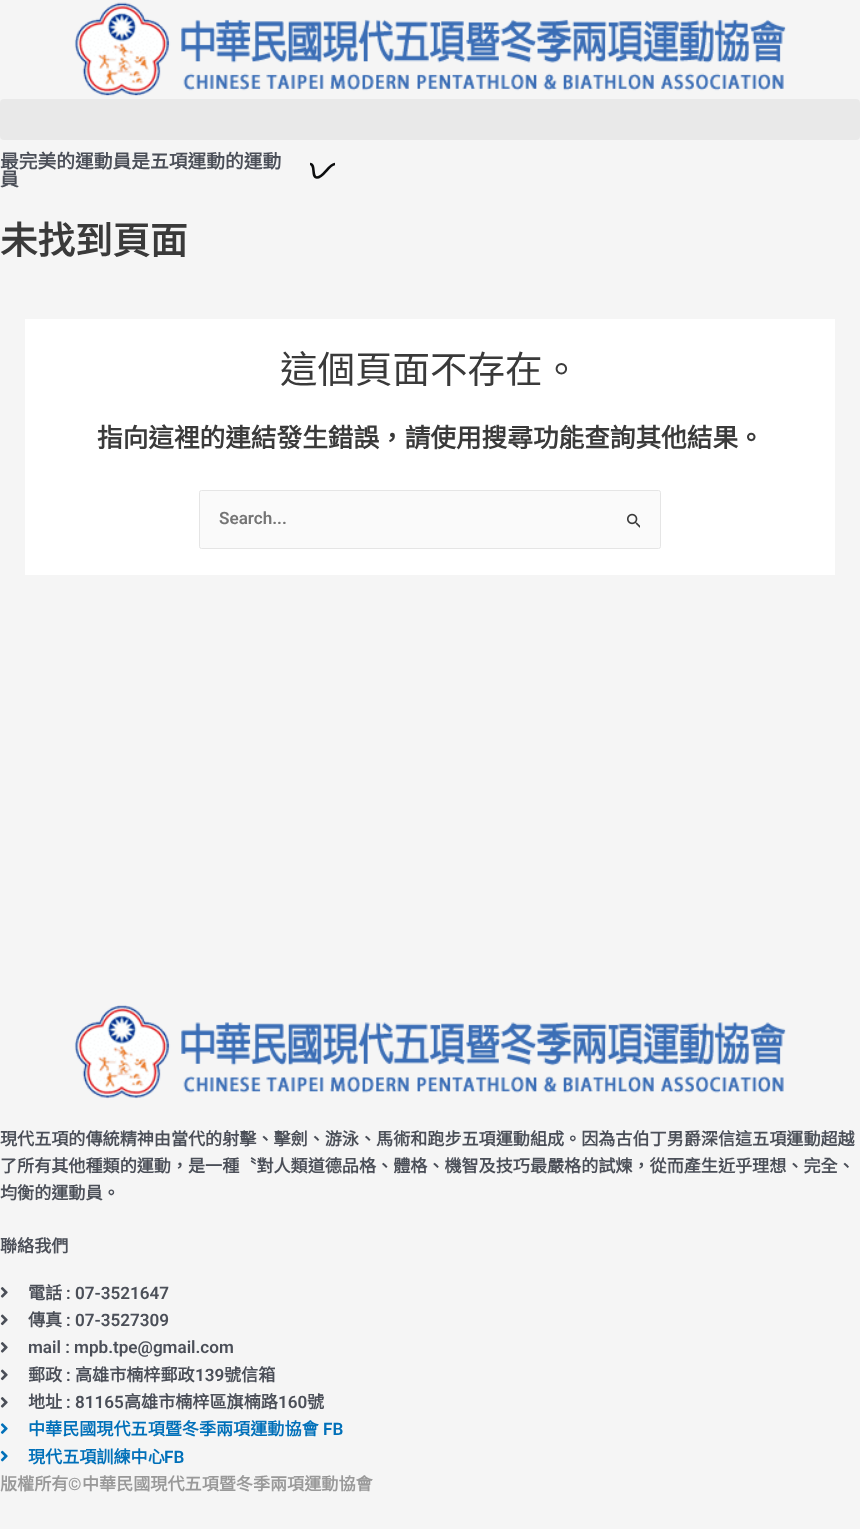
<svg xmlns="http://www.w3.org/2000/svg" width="860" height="1529">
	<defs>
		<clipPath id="clip1"><rect x="310" y="156" width="25" height="30" /></clipPath>
	</defs>
	<rect width="100%" height="100%" fill="#F5F5F5" />
	<image x="74" y="2" width="712" height="94" href="assets/img1.png" />
	<rect x="0" y="99" width="860" height="41" rx="4" fill="#E9E9E9" />
	<g font-family="Noto Sans CJK TC" font-size="18.75" font-weight="700" fill="#4B4F58">
		<text x="0" y="168">最完美的運動員是五項運動的運動</text>
		<text x="0" y="186">員</text>
	</g>
	<g clip-path="url(#clip1)">
		<path d="M310 164C316 164 311 177.5 317 177.5C323.5 177.5 329 164 335 164" fill="none" stroke="#0C0D0E" stroke-width="2.6" stroke-linecap="square" />
	</g>
	<text x="0" y="254" font-family="Noto Sans CJK TC" font-size="37.5" font-weight="700" fill="#3A3A3A">未找到頁面</text>
	<rect x="25" y="319" width="810" height="256" fill="#FFFFFF" />
	<text x="280" y="383" font-family="Noto Sans CJK TC" font-size="37.5" fill="#3A3A3A">這個頁面不存在。</text>
	<text x="97" y="447" font-family="Noto Sans CJK TC" font-size="25.65" font-weight="700" fill="#3A3A3A">指向這裡的連結發生錯誤，請使用搜尋功能查詢其他結果。</text>
	<rect x="199.5" y="490.5" width="461" height="58" rx="2" fill="#FAFAFA" stroke="#E5E5E5" />
	<text x="219" y="524" font-family="Roboto" font-size="17.1" font-weight="600" fill="#757575">Search...</text>
	<image x="627" y="513" width="13" height="15" href="assets/img2.png" />
	<image x="74" y="1005" width="712" height="94" href="assets/img3.png" />
	<g font-family="Noto Sans CJK TC" font-size="17.1" font-weight="700" fill="#4B4F58">
		<text x="0" y="1145">現代五項的傳統精神由當代的射擊、擊劍、游泳、馬術和跑步五項運動組成。因為古伯丁男爵深信這五項運動超越</text>
		<text x="0" y="1172">了所有其他種類的運動，是一種〝對人類道德品格、體格、機智及技巧最嚴格的試煉，從而產生近乎理想、完全、</text>
		<text x="0" y="1199">均衡的運動員。</text>
		<text x="0" y="1252">聯絡我們</text>
	</g>
	<image x="0" y="1287" width="8" height="11" href="assets/img4.png" />
	<text x="28" y="1299" font-family="Noto Sans CJK TC" font-size="17.1" font-weight="700" fill="#4B4F58">電話</text>
	<text x="66" y="1299" font-family="Roboto" font-size="17.1" font-weight="600" fill="#4B4F58">: 07-3521647</text>
	<image x="0" y="1314" width="8" height="12" href="assets/img5.png" />
	<text x="28" y="1326" font-family="Noto Sans CJK TC" font-size="17.1" font-weight="700" fill="#4B4F58">傳真</text>
	<text x="66" y="1326" font-family="Roboto" font-size="17.1" font-weight="600" fill="#4B4F58">: 07-3527309</text>
	<image x="0" y="1342" width="8" height="11" href="assets/img4.png" />
	<text x="28" y="1353" font-family="Roboto" font-size="17.1" font-weight="600" fill="#4B4F58">mail : mpb.tpe@gmail.com</text>
	<image x="0" y="1369" width="8" height="12" href="assets/img5.png" />
	<text x="28" y="1381" font-family="Noto Sans CJK TC" font-size="17.1" font-weight="700" fill="#4B4F58">郵政</text>
	<text x="66" y="1381" font-family="Roboto" font-size="17.1" font-weight="600" fill="#4B4F58">:</text>
	<text x="75" y="1381" font-family="Noto Sans CJK TC" font-size="17.1" font-weight="700" fill="#4B4F58">高雄市楠梓郵政</text>
	<text x="195" y="1381" font-family="Roboto" font-size="17.1" font-weight="600" fill="#4B4F58">139</text>
	<text x="224" y="1381" font-family="Noto Sans CJK TC" font-size="17.1" font-weight="700" fill="#4B4F58">號信箱</text>
	<image x="0" y="1397" width="8" height="11" href="assets/img4.png" />
	<text x="28" y="1408" font-family="Noto Sans CJK TC" font-size="17.1" font-weight="700" fill="#4B4F58">地址</text>
	<text x="66" y="1408" font-family="Roboto" font-size="17.1" font-weight="600" fill="#4B4F58">: 81165</text>
	<text x="124" y="1408" font-family="Noto Sans CJK TC" font-size="17.1" font-weight="700" fill="#4B4F58">高雄市楠梓區旗楠路</text>
	<text x="278" y="1408" font-family="Roboto" font-size="17.1" font-weight="600" fill="#4B4F58">160</text>
	<text x="307" y="1408" font-family="Noto Sans CJK TC" font-size="17.1" font-weight="700" fill="#4B4F58">號</text>
	<image x="0" y="1423" width="8" height="11" href="assets/img6.png" />
	<text x="28" y="1435" font-family="Noto Sans CJK TC" font-size="17.1" font-weight="700" fill="#0170B9">中華民國現代五項暨冬季兩項運動協會</text>
	<text x="323" y="1435" font-family="Roboto" font-size="17.1" font-weight="600" fill="#0170B9">FB</text>
	<image x="0" y="1450" width="8" height="12" href="assets/img7.png" />
	<text x="28" y="1463" font-family="Noto Sans CJK TC" font-size="17.1" font-weight="700" fill="#0170B9">現代五項訓練中心</text>
	<text x="164" y="1463" font-family="Roboto" font-size="17.1" font-weight="600" fill="#0170B9">FB</text>
	<text x="0" y="1490" font-family="Noto Sans CJK TC" font-size="17.1" font-weight="700" fill="#999999">版權所有</text>
	<text x="68" y="1490" font-family="Roboto" font-size="17.1" font-weight="600" fill="#999999">©</text>
	<text x="82" y="1490" font-family="Noto Sans CJK TC" font-size="17.1" font-weight="700" fill="#999999">中華民國現代五項暨冬季兩項運動協會</text>
</svg>
